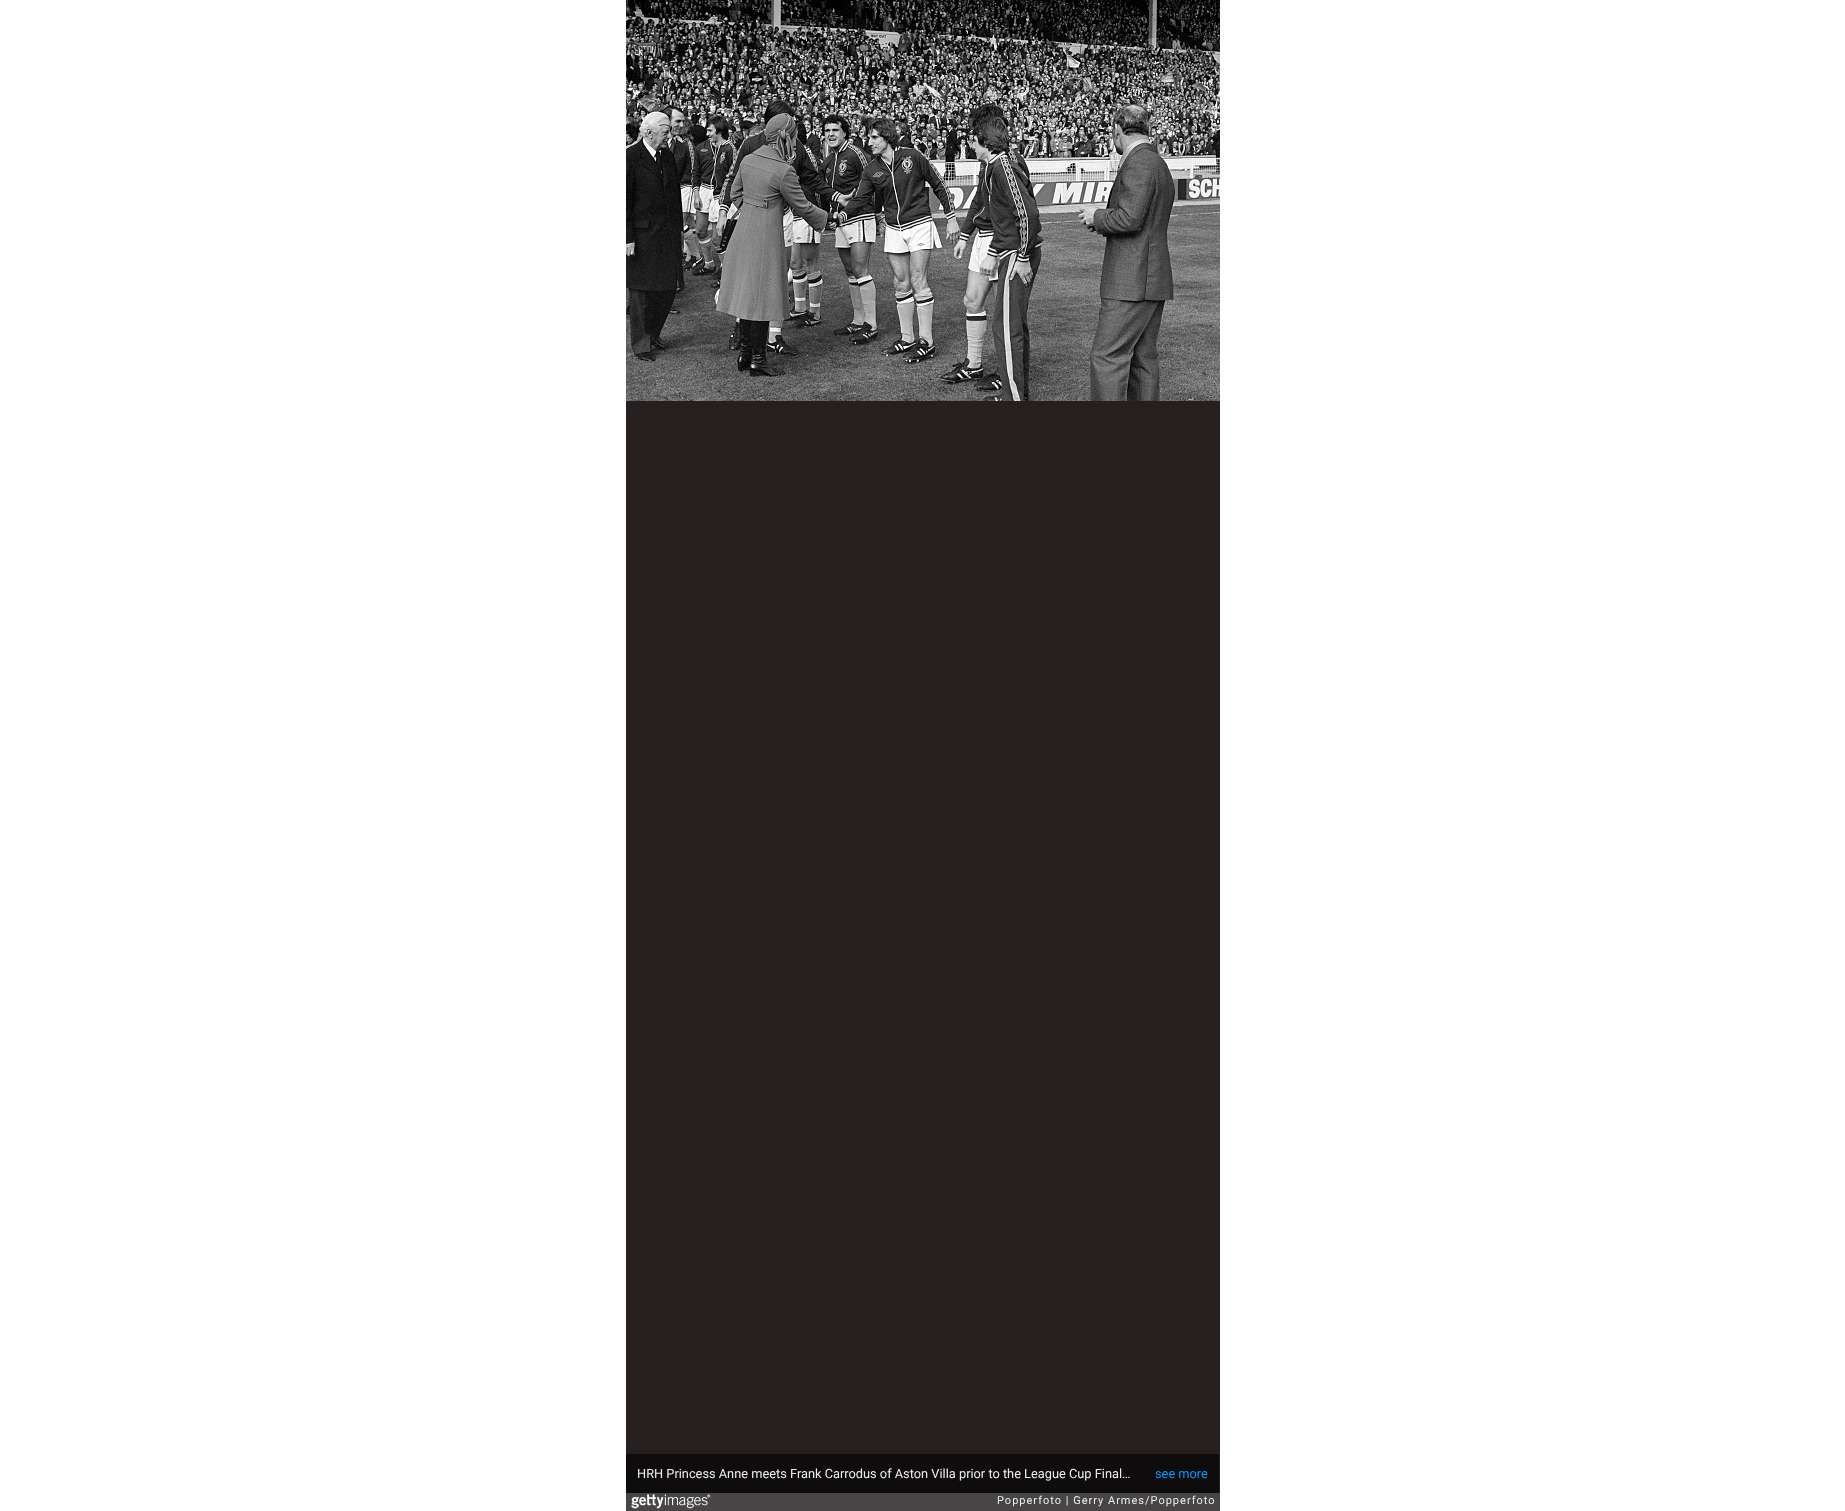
<svg xmlns="http://www.w3.org/2000/svg" width="1845" height="1511">
	<rect width="100%" height="100%" fill="#FFFFFF" />
	<rect x="626" y="401" width="594" height="1092" fill="#251F20" />
	<image x="626" y="0" width="594" height="401" href="assets/img1.png" />
	<rect x="626" y="1454" width="593" height="39" fill="#0F0C0D" />
	<text x="637" y="1478" font-family="Roboto" font-size="12.8" fill="#EEEEEE">HRH Princess Anne meets Frank Carrodus of Aston Villa prior to the League Cup Final…</text>
	<text x="1155" y="1478" font-family="Roboto" font-size="12.8" fill="#0099FF">see more</text>
	<rect x="626" y="1493" width="594" height="18" fill="#474545" />
	<image x="631" y="1494" width="80" height="15" href="assets/img2.png" />
	<text x="997" y="1504" font-family="Roboto" font-size="11" letter-spacing="1" fill="#EEEEEE">Popperfoto | Gerry Armes/Popperfoto</text>
</svg>
